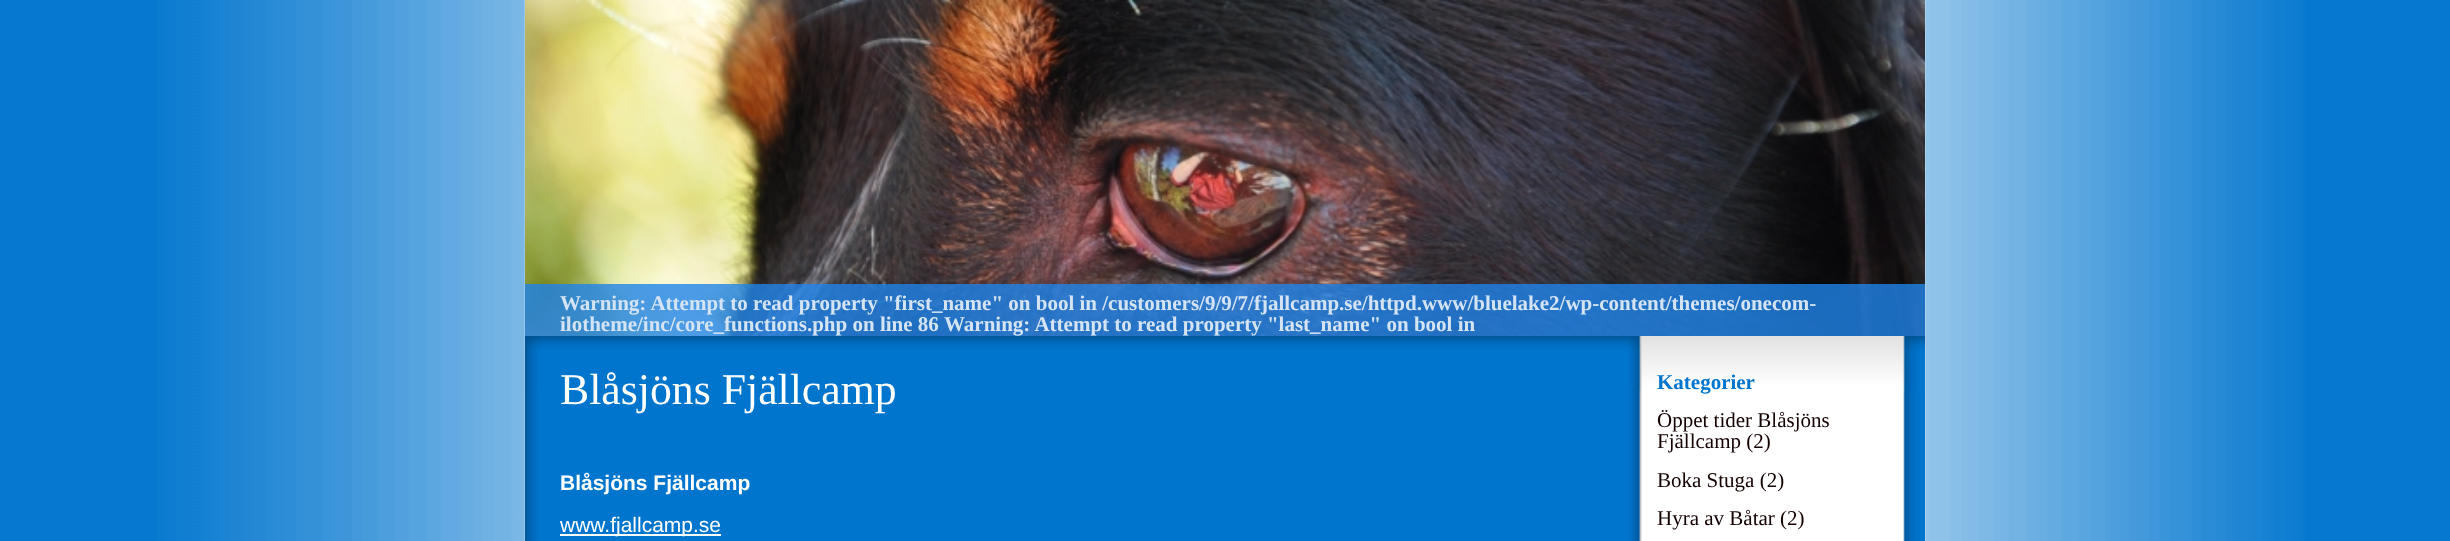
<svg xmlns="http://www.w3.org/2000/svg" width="2450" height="541">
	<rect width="100%" height="100%" fill="#0678CF" />
	<image x="157" y="0" width="2148" height="541" href="assets/img1.png" />
	<image x="525" y="0" width="1400" height="336" href="assets/img2.png" />
	<rect x="525" y="284" width="1400" height="52" fill="#1F83EA" fill-opacity="0.8" />
	<g font-family="Liberation Serif" font-size="21" font-weight="700" fill="#D5E4F4">
		<text x="560" y="310">Warning: Attempt to read property "first_name" on bool in /customers/9/9/7/fjallcamp.se/httpd.www/bluelake2/wp-content/themes/onecom-</text>
		<text x="560" y="331">ilotheme/inc/core_functions.php on line 86</text>
		<text x="944" y="331">Warning: Attempt to read property "last_name" on bool in</text>
	</g>
	<image x="525" y="390" width="1400" height="151" href="assets/img3.png" />
	<image x="525" y="336" width="1400" height="54" href="assets/img4.png" />
	<text x="1657" y="389" font-family="Liberation Serif" font-size="21" font-weight="700" fill="#0075CE">Kategorier</text>
	<g font-family="Liberation Serif" font-size="21" fill="#140101">
		<text x="1657" y="427">Öppet tider Blåsjöns</text>
		<text x="1657" y="448">Fjällcamp (2)</text>
		<text x="1657" y="487">Boka Stuga (2)</text>
		<text x="1657" y="525">Hyra av Båtar (2)</text>
	</g>
	<text x="560" y="404" font-family="Liberation Serif" font-size="43.75" fill="#FFFFFF">Blåsjöns Fjällcamp</text>
	<text x="560" y="490" font-family="Liberation Sans" font-size="21" font-weight="700" fill="#FFFFFF">Blåsjöns Fjällcamp</text>
	<rect x="560" y="534" width="161" height="2" fill="#FFFFFF" />
	<text x="560" y="532" font-family="Liberation Sans" font-size="21" fill="#FFFFFF">www.fjallcamp.se</text>
</svg>
